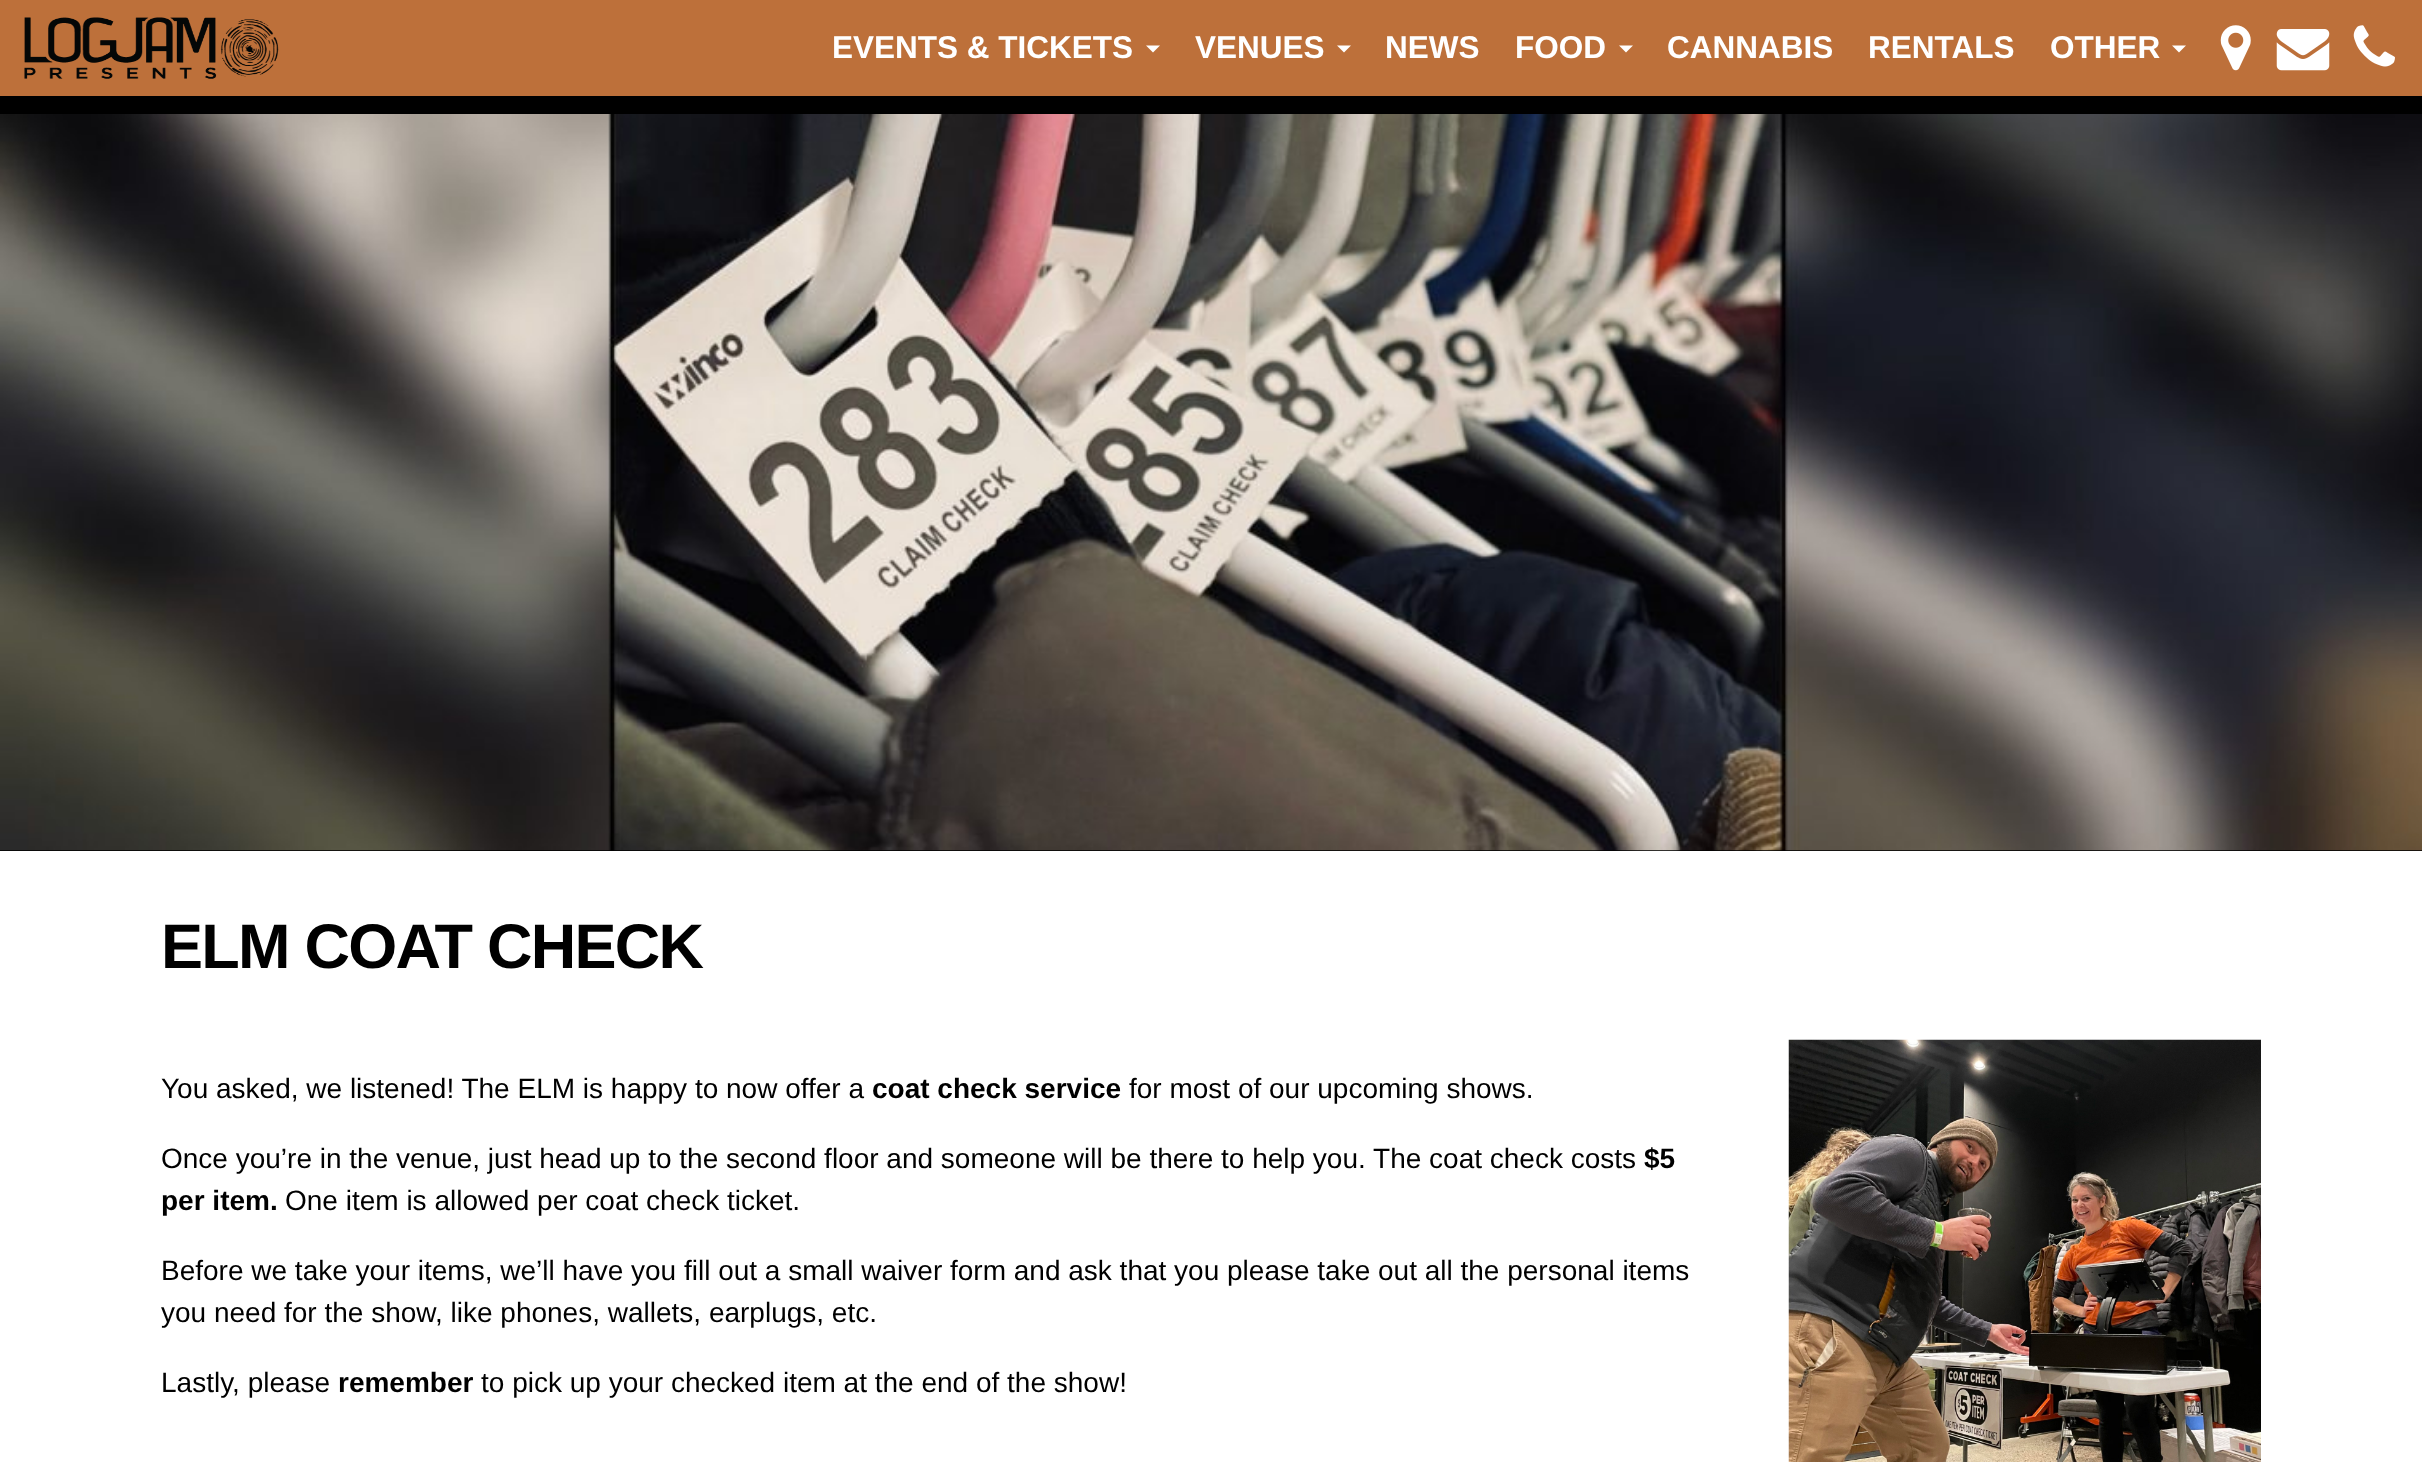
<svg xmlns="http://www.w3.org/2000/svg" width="2422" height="1462">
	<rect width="100%" height="100%" fill="#000000" />
	<rect x="0" y="0" width="2422" height="96" fill="#BD703A" />
	<image x="24" y="17" width="255" height="62" href="assets/img1.png" />
	<text x="832" y="58" font-family="Liberation Sans" font-size="31.5" font-weight="700" fill="#FFFFFF">EVENTS &amp; TICKETS</text>
	<path d="M1146 45.5H1160L1153 52.5Z" fill="#FFFFFF" />
	<text x="1195" y="58" font-family="Liberation Sans" font-size="31.5" font-weight="700" fill="#FFFFFF">VENUES</text>
	<path d="M1337 45.5H1351L1344 52.5Z" fill="#FFFFFF" />
	<g font-family="Liberation Sans" font-size="31.5" font-weight="700" fill="#FFFFFF">
		<text x="1385" y="58">NEWS</text>
		<text x="1515" y="58">FOOD</text>
	</g>
	<path d="M1619 45.5H1633L1626 52.5Z" fill="#FFFFFF" />
	<g font-family="Liberation Sans" font-size="31.5" font-weight="700" fill="#FFFFFF">
		<text x="1667" y="58">CANNABIS</text>
		<text x="1868" y="58">RENTALS</text>
		<text x="2050" y="58">OTHER</text>
	</g>
	<path d="M2172 45.5H2186L2179 52.5Z" fill="#FFFFFF" />
	<image x="2220" y="25" width="31" height="46" href="assets/img2.png" />
	<image x="2276" y="29" width="54" height="42" href="assets/img3.png" />
	<image x="2353" y="25" width="42" height="42" href="assets/img4.png" />
	<image x="0" y="114" width="2422" height="737" href="assets/img5.png" />
	<rect x="0" y="851" width="2422" height="611" fill="#FFFFFF" />
	<text x="161" y="968" font-family="Liberation Sans" font-size="63" font-weight="700" letter-spacing="-1.75" fill="#000000">ELM COAT CHECK</text>
	<text x="161" y="1098" font-family="Liberation Sans" font-size="28" fill="#000000">You asked, we listened! The ELM is happy to now offer a</text>
	<text x="872" y="1098" font-family="Liberation Sans" font-size="28" font-weight="700" fill="#000000">coat check service</text>
	<g font-family="Liberation Sans" font-size="28" fill="#000000">
		<text x="1129" y="1098">for most of our upcoming shows.</text>
		<text x="161" y="1168">Once you’re in the venue, just head up to the second floor and someone will be there to help you. The coat check costs</text>
	</g>
	<g font-family="Liberation Sans" font-size="28" font-weight="700" fill="#000000">
		<text x="1644" y="1168">$5</text>
		<text x="161" y="1210">per item.</text>
	</g>
	<g font-family="Liberation Sans" font-size="28" fill="#000000">
		<text x="285" y="1210">One item is allowed per coat check ticket.</text>
		<text x="161" y="1280">Before we take your items, we’ll have you fill out a small waiver form and ask that you please take out all the personal items</text>
		<text x="161" y="1322">you need for the show, like phones, wallets, earplugs, etc.</text>
		<text x="161" y="1392">Lastly, please</text>
	</g>
	<text x="338" y="1392" font-family="Liberation Sans" font-size="28" font-weight="700" fill="#000000">remember</text>
	<text x="481" y="1392" font-family="Liberation Sans" font-size="28" fill="#000000">to pick up your checked item at the end of the show!</text>
	<image x="1788" y="1039" width="473" height="423" href="assets/img6.png" />
</svg>
